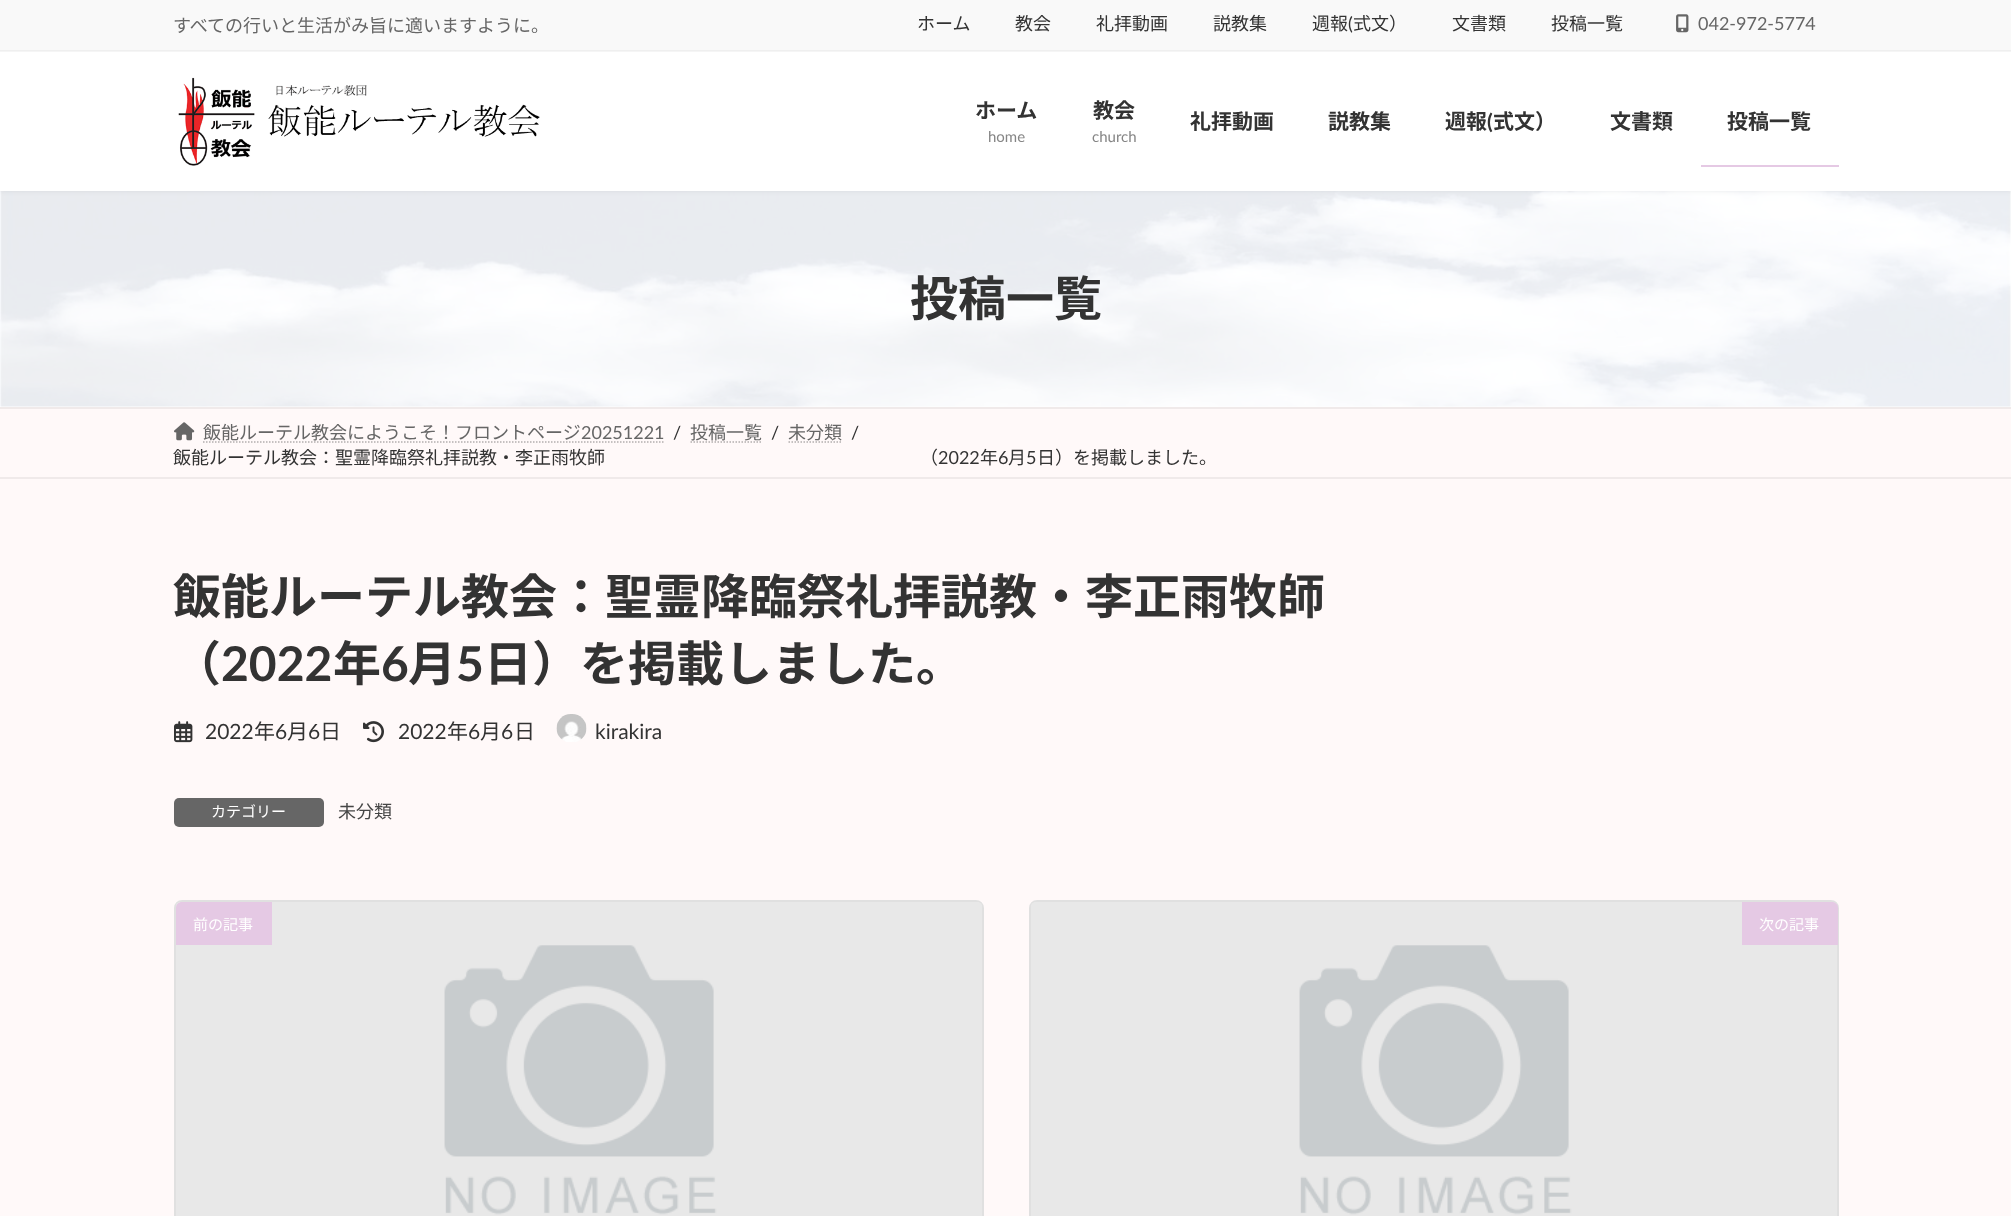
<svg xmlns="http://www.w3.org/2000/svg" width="2011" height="1216">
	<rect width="100%" height="100%" fill="#FFF9F9" />
	<rect x="0" y="406" width="2011" height="1" fill="#FFFEFE" />
	<image x="0" y="191" width="2011" height="216" href="assets/img3.png" />
	<rect x="0" y="-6" width="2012" height="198" fill="#000000" fill-opacity="0.05" filter="blur(2px)" />
	<rect x="0" y="52" width="2011" height="139" fill="#FFFFFF" />
	<rect x="0" y="51" width="2011" height="1" fill="#F5F5F5" />
	<rect x="0" y="0" width="2011" height="50" fill="#F9F9F9" />
	<rect x="0" y="50" width="2011" height="1" fill="#EFEFEF" />
	<text x="173" y="32" font-family="Noto Sans JP" font-size="18" fill="#666666">すべての行いと生活がみ旨に適いますように。</text>
	<g font-family="Noto Sans JP" font-size="18" fill="#333333">
		<text x="917" y="30">ホーム</text>
		<text x="1015" y="30">教会</text>
		<text x="1096" y="30">礼拝動画</text>
		<text x="1213" y="30">説教集</text>
		<text x="1312" y="30">週報</text>
	</g>
	<text x="1348" y="30" font-family="Lato" font-size="18" fill="#333333">(</text>
	<g font-family="Noto Sans JP" font-size="18" fill="#333333">
		<text x="1353" y="30">式文）</text>
		<text x="1452" y="30">文書類</text>
		<text x="1551" y="30">投稿一覧</text>
	</g>
	<image x="1676" y="14" width="13" height="19" href="assets/img1.png" />
	<text x="1698" y="30" font-family="Lato" font-size="18" fill="#666666">042-972-5774</text>
	<image x="178" y="77" width="362" height="89" href="assets/img2.png" />
	<text x="975" y="118" font-family="Noto Sans JP" font-size="21" font-weight="700" fill="#333333">ホーム</text>
	<text x="988" y="142" font-family="Lato" font-size="15" fill="#858585">home</text>
	<text x="1093" y="118" font-family="Noto Sans JP" font-size="21" font-weight="700" fill="#333333">教会</text>
	<text x="1092" y="142" font-family="Lato" font-size="15" fill="#858585">church</text>
	<g font-family="Noto Sans JP" font-size="21" font-weight="700" fill="#333333">
		<text x="1190" y="129">礼拝動画</text>
		<text x="1328" y="129">説教集</text>
		<text x="1445" y="129">週報</text>
	</g>
	<text x="1487" y="129" font-family="Lato" font-size="21" font-weight="700" fill="#333333">(</text>
	<g font-family="Noto Sans JP" font-size="21" font-weight="700" fill="#333333">
		<text x="1493" y="129">式文）</text>
		<text x="1610" y="129">文書類</text>
		<text x="1727" y="129">投稿一覧</text>
	</g>
	<rect x="1701" y="165" width="138" height="2" fill="#E5C9E4" />
	<text x="910" y="316" font-family="Noto Sans JP" font-size="48" font-weight="700" fill="#333333">投稿一覧</text>
	<rect x="0" y="407" width="2011" height="2" fill="#F0EAEA" />
	<rect x="0" y="477" width="2011" height="2" fill="#F0EAEA" />
	<image x="174" y="422" width="21" height="19" href="assets/img4.png" />
	<text x="203" y="439" font-family="Noto Sans JP" font-size="18" fill="#666666">飯能ルーテル教会にようこそ！フロントページ</text>
	<text x="581" y="439" font-family="Lato" font-size="18" fill="#666666">20251221</text>
	<path d="M203 442H664" fill="none" stroke="#B3AEAE" stroke-width="1.5" stroke-dasharray="1.5 1.5" />
	<text x="673" y="439" font-family="Lato" font-size="18" fill="#333333">/</text>
	<text x="690" y="439" font-family="Noto Sans JP" font-size="18" fill="#666666">投稿一覧</text>
	<path d="M690.5 442H762.5" fill="none" stroke="#B3AEAE" stroke-width="1.5" stroke-dasharray="1.5 1.5" />
	<text x="771" y="439" font-family="Lato" font-size="18" fill="#333333">/</text>
	<text x="788" y="439" font-family="Noto Sans JP" font-size="18" fill="#666666">未分類</text>
	<path d="M788.5 442H842.5" fill="none" stroke="#B3AEAE" stroke-width="1.5" stroke-dasharray="1.5 1.5" />
	<text x="851" y="439" font-family="Lato" font-size="18" fill="#333333">/</text>
	<text x="173" y="464" font-family="Noto Sans JP" font-size="18" fill="#333333">飯能ルーテル教会：聖霊降臨祭礼拝説教・李正雨牧師　　　　　　　　　　　　　　　　　　（</text>
	<text x="938" y="464" font-family="Lato" font-size="18" fill="#333333">2022</text>
	<text x="980" y="464" font-family="Noto Sans JP" font-size="18" fill="#333333">年</text>
	<text x="998" y="464" font-family="Lato" font-size="18" fill="#333333">6</text>
	<text x="1008" y="464" font-family="Noto Sans JP" font-size="18" fill="#333333">月</text>
	<text x="1026" y="464" font-family="Lato" font-size="18" fill="#333333">5</text>
	<text x="1037" y="464" font-family="Noto Sans JP" font-size="18" fill="#333333">日）を掲載しました。</text>
	<g font-family="Noto Sans JP" font-size="48" font-weight="700" fill="#333333">
		<text x="173" y="614">飯能ルーテル教会：聖霊降臨祭礼拝説教・李正雨牧師</text>
		<text x="173" y="681">（</text>
	</g>
	<text x="221" y="681" font-family="Lato" font-size="48" font-weight="700" fill="#333333">2022</text>
	<text x="333" y="681" font-family="Noto Sans JP" font-size="48" font-weight="700" fill="#333333">年</text>
	<text x="381" y="681" font-family="Lato" font-size="48" font-weight="700" fill="#333333">6</text>
	<text x="408" y="681" font-family="Noto Sans JP" font-size="48" font-weight="700" fill="#333333">月</text>
	<text x="456" y="681" font-family="Lato" font-size="48" font-weight="700" fill="#333333">5</text>
	<text x="484" y="681" font-family="Noto Sans JP" font-size="48" font-weight="700" fill="#333333">日）を掲載しました。</text>
	<image x="174" y="721" width="19" height="22" href="assets/img5.png" />
	<text x="205" y="739" font-family="Lato" font-size="21" fill="#333333">2022</text>
	<text x="254" y="739" font-family="Noto Sans JP" font-size="21" fill="#333333">年</text>
	<text x="275" y="739" font-family="Lato" font-size="21" fill="#333333">6</text>
	<text x="287" y="739" font-family="Noto Sans JP" font-size="21" fill="#333333">月</text>
	<text x="308" y="739" font-family="Lato" font-size="21" fill="#333333">6</text>
	<text x="320" y="739" font-family="Noto Sans JP" font-size="21" fill="#333333">日</text>
	<image x="363" y="721" width="21" height="22" href="assets/img6.png" />
	<text x="398" y="739" font-family="Lato" font-size="21" fill="#333333">2022</text>
	<text x="447" y="739" font-family="Noto Sans JP" font-size="21" fill="#333333">年</text>
	<text x="468" y="739" font-family="Lato" font-size="21" fill="#333333">6</text>
	<text x="480" y="739" font-family="Noto Sans JP" font-size="21" fill="#333333">月</text>
	<text x="501" y="739" font-family="Lato" font-size="21" fill="#333333">6</text>
	<text x="514" y="739" font-family="Noto Sans JP" font-size="21" fill="#333333">日</text>
	<image x="556" y="714" width="31" height="28" href="assets/img7.png" />
	<text x="595" y="739" font-family="Lato" font-size="21" fill="#333333">kirakira</text>
	<rect x="174" y="798" width="150" height="29" rx="5" fill="#666666" />
	<text x="211" y="817" font-family="Noto Sans JP" font-size="15" fill="#FFFFFF">カテゴリー</text>
	<text x="338" y="818" font-family="Noto Sans JP" font-size="18" fill="#464646">未分類</text>
	<rect x="174" y="900" width="810" height="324" rx="8" fill="#FFFFFF" />
	<rect x="175" y="901" width="808" height="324" rx="7" fill="none" stroke="#000000" stroke-opacity="0.12" stroke-width="2" />
	<image x="176" y="902" width="806" height="314" href="assets/img8.png" />
	<path d="M182 902H272V945H176V908C176 904.5 178.5 902 182 902Z" fill="#E5C9E4" />
	<text x="193" y="930" font-family="Noto Sans JP" font-size="15" fill="#FFFFFF">前の記事</text>
	<rect x="1029" y="900" width="810" height="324" rx="8" fill="#FFFFFF" />
	<rect x="1030" y="901" width="808" height="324" rx="7" fill="none" stroke="#000000" stroke-opacity="0.12" stroke-width="2" />
	<image x="1031" y="902" width="806" height="314" href="assets/img8.png" />
	<path d="M1742 902H1832C1835.5 902 1838 904.5 1838 908V945H1742Z" fill="#E5C9E4" />
	<text x="1759" y="930" font-family="Noto Sans JP" font-size="15" fill="#FFFFFF">次の記事</text>
</svg>
